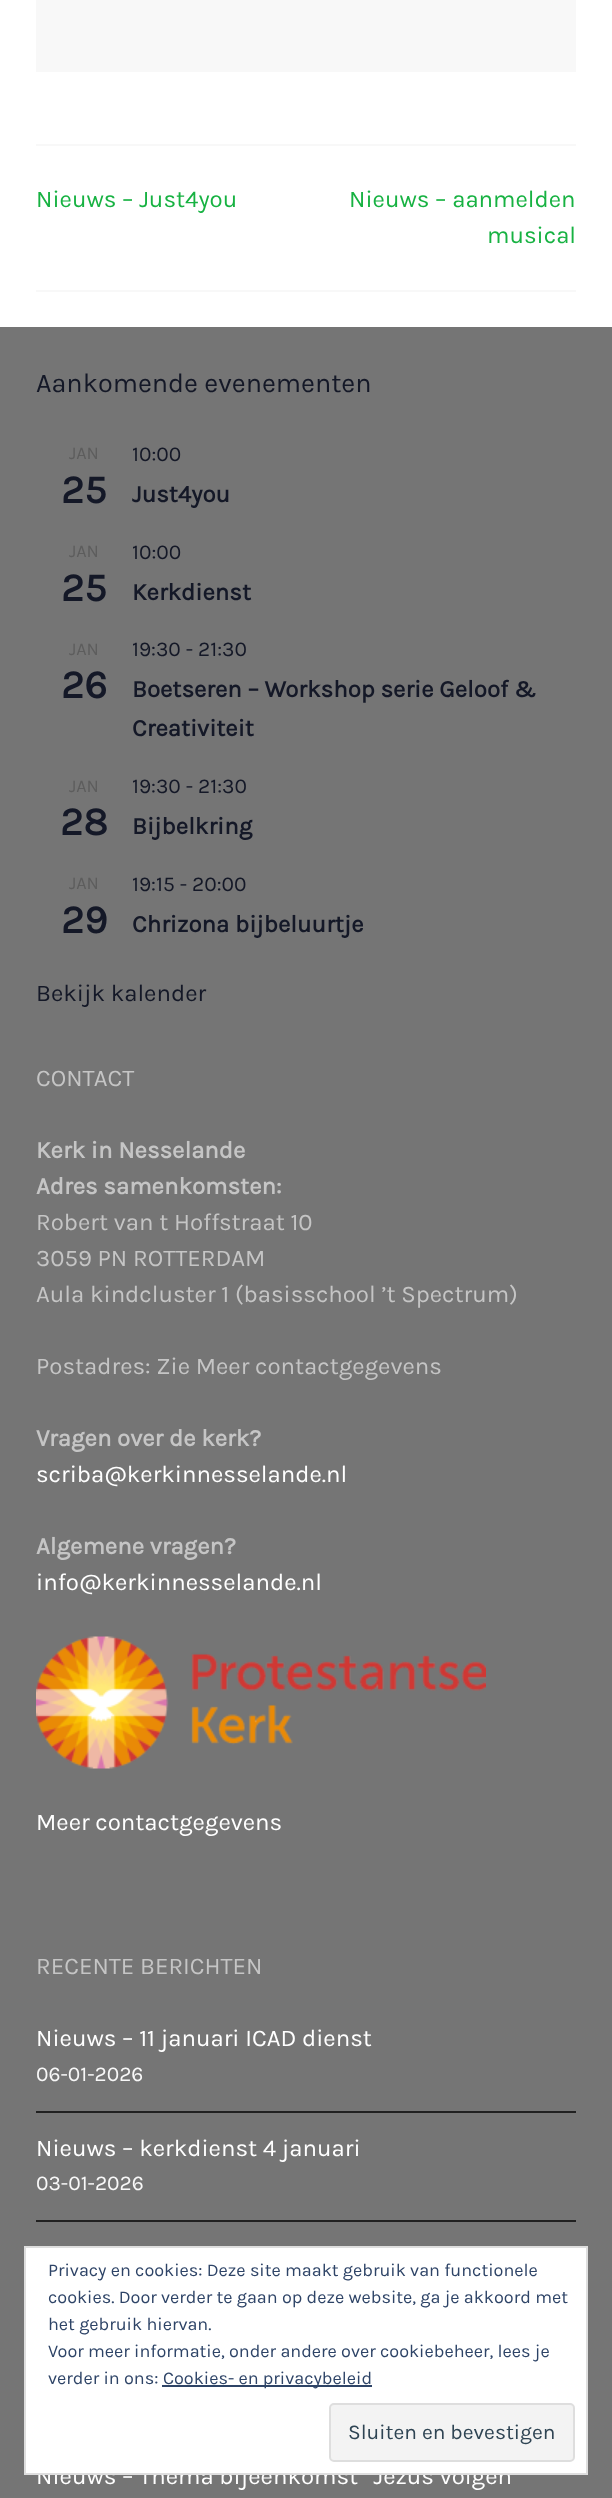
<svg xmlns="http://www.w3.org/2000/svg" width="612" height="2498">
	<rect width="100%" height="100%" fill="#FFFFFF" />
	<rect x="36" y="0" width="540" height="72" fill="#F8F8F8" />
	<rect x="36" y="144" width="540" height="2" fill="#F8F8F8" />
	<rect x="36" y="290" width="540" height="2" fill="#F8F8F8" />
	<g font-family="Karla" font-size="24" fill="#17B242">
		<text x="36" y="207">Nieuws – Just4you</text>
		<text x="349" y="207">Nieuws – aanmelden</text>
		<text x="487" y="243">musical</text>
	</g>
	<rect x="0" y="327" width="612" height="2171" fill="#757575" />
	<text x="36" y="392" font-family="Karla" font-size="27" fill="#141827">Aankomende evenementen</text>
	<text x="69" y="459" font-family="Karla" font-size="18" fill="#5D5D5D">JAN</text>
	<text x="61" y="503" font-family="Karla" font-size="40" font-weight="700" fill="#141827">25</text>
	<text x="132" y="461" font-family="Karla" font-size="21" fill="#141827">10:00</text>
	<text x="132" y="502" font-family="Karla" font-size="24" font-weight="700" fill="#141827">Just4you</text>
	<text x="69" y="557" font-family="Karla" font-size="18" fill="#5D5D5D">JAN</text>
	<text x="61" y="601" font-family="Karla" font-size="40" font-weight="700" fill="#141827">25</text>
	<text x="132" y="559" font-family="Karla" font-size="21" fill="#141827">10:00</text>
	<text x="132" y="600" font-family="Karla" font-size="24" font-weight="700" fill="#141827">Kerkdienst</text>
	<text x="69" y="655" font-family="Karla" font-size="18" fill="#5D5D5D">JAN</text>
	<text x="61" y="698" font-family="Karla" font-size="40" font-weight="700" fill="#141827">26</text>
	<text x="132" y="656" font-family="Karla" font-size="21" fill="#141827">19:30 - 21:30</text>
	<g font-family="Karla" font-size="24" font-weight="700" fill="#141827">
		<text x="132" y="697">Boetseren – Workshop serie Geloof &amp;</text>
		<text x="132" y="736">Creativiteit</text>
	</g>
	<text x="69" y="792" font-family="Karla" font-size="18" fill="#5D5D5D">JAN</text>
	<text x="60" y="835" font-family="Karla" font-size="40" font-weight="700" fill="#141827">28</text>
	<text x="132" y="793" font-family="Karla" font-size="21" fill="#141827">19:30 - 21:30</text>
	<text x="132" y="834" font-family="Karla" font-size="24" font-weight="700" fill="#141827">Bijbelkring</text>
	<text x="69" y="889" font-family="Karla" font-size="18" fill="#5D5D5D">JAN</text>
	<text x="61" y="933" font-family="Karla" font-size="40" font-weight="700" fill="#141827">29</text>
	<text x="132" y="891" font-family="Karla" font-size="21" fill="#141827">19:15 - 20:00</text>
	<text x="132" y="932" font-family="Karla" font-size="24" font-weight="700" fill="#141827">Chrizona bijbeluurtje</text>
	<text x="36" y="1001" font-family="Karla" font-size="24" fill="#141827">Bekijk kalender</text>
	<text x="36" y="1086" font-family="Karla" font-size="24" fill="#C5C5C5">CONTACT</text>
	<g font-family="Karla" font-size="24" font-weight="700" fill="#C5C5C5">
		<text x="36" y="1158">Kerk in Nesselande</text>
		<text x="36" y="1194">Adres samenkomsten:</text>
	</g>
	<g font-family="Karla" font-size="24" fill="#C5C5C5">
		<text x="36" y="1230">Robert van t Hoffstraat 10</text>
		<text x="36" y="1266">3059 PN ROTTERDAM</text>
		<text x="36" y="1302">Aula kindcluster 1 (basisschool ’t Spectrum)</text>
		<text x="36" y="1374">Postadres: Zie Meer contactgegevens</text>
	</g>
	<text x="36" y="1446" font-family="Karla" font-size="24" font-weight="700" fill="#C5C5C5">Vragen over de kerk?</text>
	<text x="36" y="1482" font-family="Karla" font-size="24" fill="#FFFFFF">scriba@kerkinnesselande.nl</text>
	<text x="36" y="1554" font-family="Karla" font-size="24" font-weight="700" fill="#C5C5C5">Algemene vragen?</text>
	<text x="36" y="1590" font-family="Karla" font-size="24" fill="#FFFFFF">info@kerkinnesselande.nl</text>
	<image x="36" y="1636" width="450" height="133" href="assets/img1.png" />
	<text x="36" y="1830" font-family="Karla" font-size="24" fill="#FFFFFF">Meer contactgegevens</text>
	<text x="36" y="1974" font-family="Karla" font-size="24" fill="#C5C5C5">RECENTE BERICHTEN</text>
	<text x="36" y="2046" font-family="Karla" font-size="24" fill="#FFFFFF">Nieuws – 11 januari ICAD dienst</text>
	<text x="36" y="2081" font-family="Karla" font-size="21" fill="#F8F8F8">06-01-2026</text>
	<rect x="36" y="2111" width="540" height="2" fill="#202020" />
	<text x="36" y="2156" font-family="Karla" font-size="24" fill="#FFFFFF">Nieuws – kerkdienst 4 januari</text>
	<text x="36" y="2190" font-family="Karla" font-size="21" fill="#F8F8F8">03-01-2026</text>
	<rect x="36" y="2220" width="540" height="2" fill="#202020" />
	<text x="36" y="2484" font-family="Karla" font-size="24" fill="#FFFFFF">Nieuws – Thema bijeenkomst “Jezus volgen</text>
	<rect x="25" y="2247" width="562" height="227" fill="#FFFFFF" stroke="#DEDEDE" stroke-width="2" />
	<g font-family="Karla" font-size="18" fill="#2E4467">
		<text x="48" y="2276">Privacy en cookies: Deze site maakt gebruik van functionele</text>
		<text x="48" y="2303">cookies. Door verder te gaan op deze website, ga je akkoord met</text>
		<text x="48" y="2330">het gebruik hiervan.</text>
		<text x="48" y="2357">Voor meer informatie, onder andere over cookiebeheer, lees je</text>
		<text x="48" y="2384">verder in ons:</text>
	</g>
	<rect x="162" y="2385" width="210" height="2" fill="#2E4467" />
	<text x="163" y="2384" font-family="Karla" font-size="18" fill="#2E4467">Cookies- en privacybeleid</text>
	<rect x="330" y="2404" width="244" height="57" rx="4" fill="#F3F3F3" stroke="#DEDEDE" stroke-width="2" />
	<text x="348" y="2439" font-family="Karla" font-size="21" fill="#2E4453">Sluiten en bevestigen</text>
</svg>
